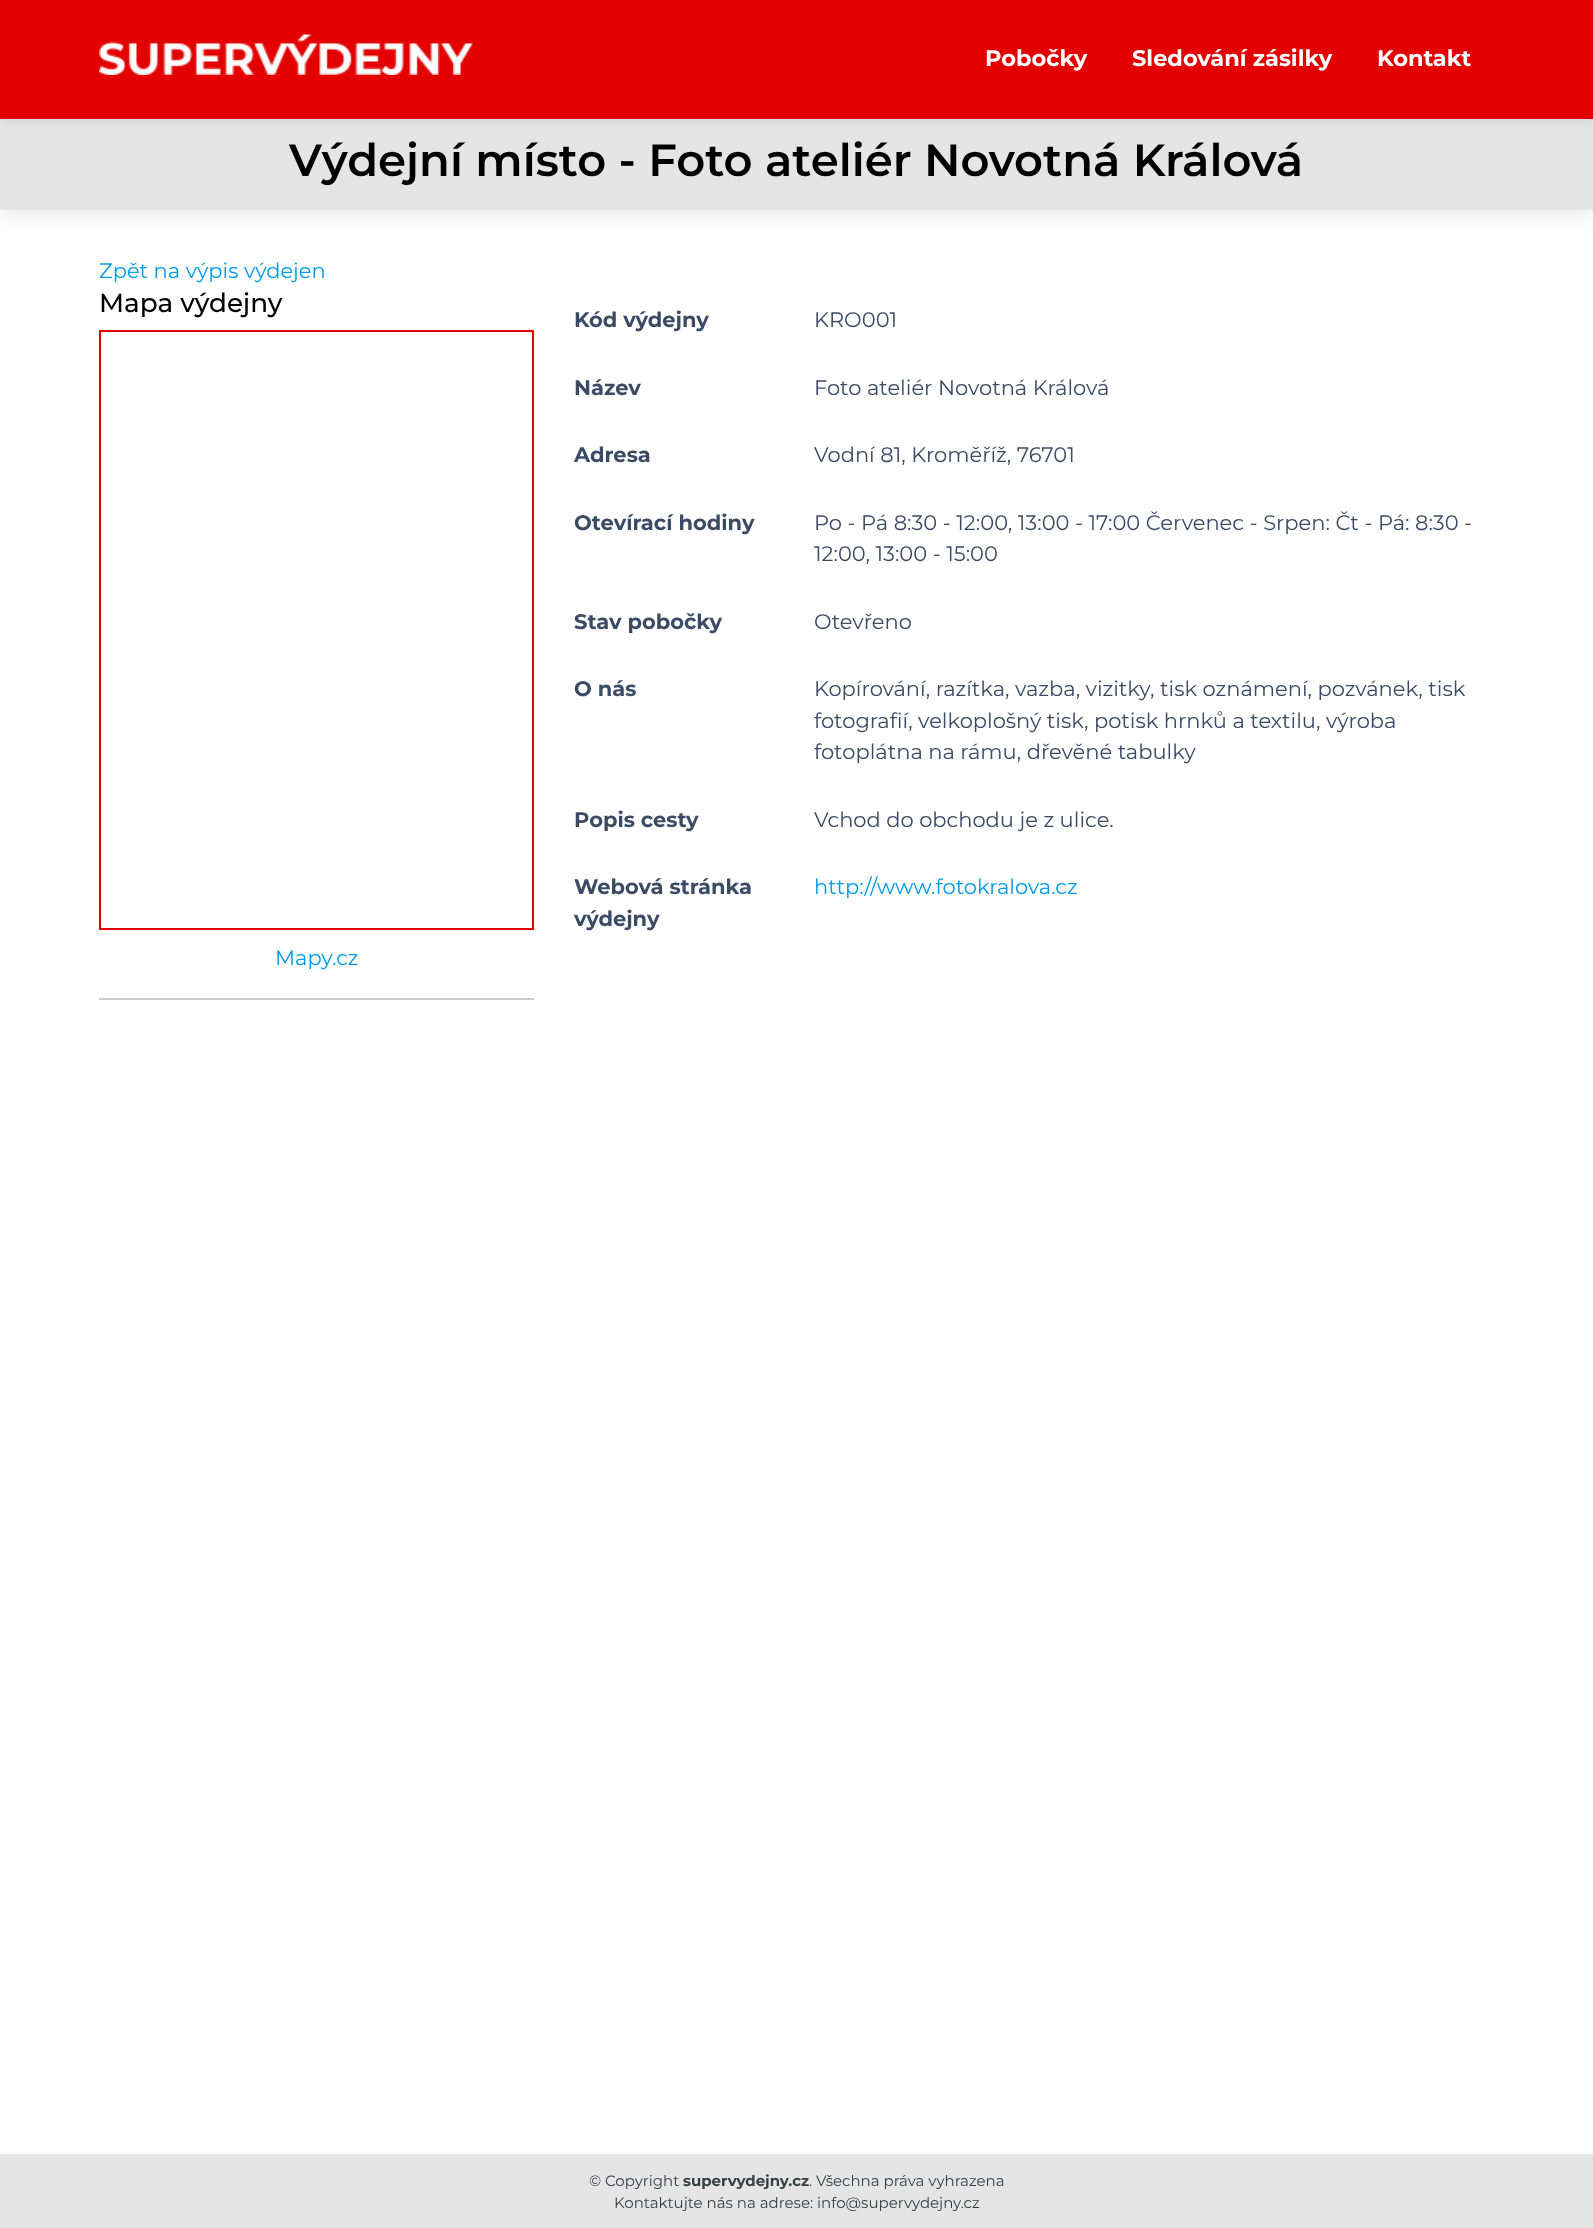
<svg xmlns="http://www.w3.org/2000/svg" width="1593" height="2228">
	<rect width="100%" height="100%" fill="#FFFFFF" />
	<rect x="0" y="108" width="1593" height="105" fill="#000000" fill-opacity="0.1" filter="blur(11px)" />
	<rect x="0" y="119" width="1593" height="91" fill="#E5E5E5" />
	<rect x="0" y="3" width="1593" height="119" fill="#000015" fill-opacity="0.07" filter="blur(3px)" />
	<rect x="0" y="0" width="1593" height="119" fill="#E20000" />
	<image x="99" y="34" width="374" height="41" href="assets/img1.png" />
	<g font-family="Montserrat" font-size="22.5" font-weight="700" fill="#FFFFFF">
		<text x="985" y="66">Pobočky</text>
		<text x="1132" y="66">Sledování zásilky</text>
		<text x="1377" y="66">Kontakt</text>
	</g>
	<text x="289" y="176" font-family="Montserrat" font-size="45" font-weight="600" fill="#000000">Výdejní místo - Foto ateliér Novotná Králová</text>
	<text x="99" y="278" font-family="Montserrat" font-size="21" fill="#009CEA">Zpět na výpis výdejen</text>
	<text x="99" y="312" font-family="Montserrat" font-size="26.25" font-weight="500" fill="#000000">Mapa výdejny</text>
	<rect x="100" y="331" width="433" height="598" fill="none" stroke="#E20000" stroke-width="2" />
	<text x="275" y="965" font-family="Montserrat" font-size="21" fill="#009CEA">Mapy.cz</text>
	<rect x="99" y="998" width="435" height="2" fill="#CCCCD0" />
	<text x="574" y="327" font-family="Montserrat" font-size="21" font-weight="700" fill="#3C4B64">Kód výdejny</text>
	<text x="814" y="327" font-family="Montserrat" font-size="21" fill="#3C4B64">KRO001</text>
	<text x="574" y="395" font-family="Montserrat" font-size="21" font-weight="700" fill="#3C4B64">Název</text>
	<text x="814" y="395" font-family="Montserrat" font-size="21" fill="#3C4B64">Foto ateliér Novotná Králová</text>
	<text x="574" y="462" font-family="Montserrat" font-size="21" font-weight="700" fill="#3C4B64">Adresa</text>
	<text x="814" y="462" font-family="Montserrat" font-size="21" fill="#3C4B64">Vodní 81, Kroměříž, 76701</text>
	<text x="574" y="530" font-family="Montserrat" font-size="21" font-weight="700" fill="#3C4B64">Otevírací hodiny</text>
	<g font-family="Montserrat" font-size="21" fill="#3C4B64">
		<text x="814" y="530">Po - Pá 8:30 - 12:00, 13:00 - 17:00 Červenec - Srpen: Čt - Pá: 8:30 -</text>
		<text x="814" y="561">12:00, 13:00 - 15:00</text>
	</g>
	<text x="574" y="629" font-family="Montserrat" font-size="21" font-weight="700" fill="#3C4B64">Stav pobočky</text>
	<text x="814" y="629" font-family="Montserrat" font-size="21" fill="#3C4B64">Otevřeno</text>
	<text x="574" y="696" font-family="Montserrat" font-size="21" font-weight="700" fill="#3C4B64">O nás</text>
	<g font-family="Montserrat" font-size="21" fill="#3C4B64">
		<text x="814" y="696">Kopírování, razítka, vazba, vizitky, tisk oznámení, pozvánek, tisk</text>
		<text x="814" y="728">fotografií, velkoplošný tisk, potisk hrnků a textilu, výroba</text>
		<text x="814" y="759">fotoplátna na rámu, dřevěné tabulky</text>
	</g>
	<text x="574" y="827" font-family="Montserrat" font-size="21" font-weight="700" fill="#3C4B64">Popis cesty</text>
	<text x="814" y="827" font-family="Montserrat" font-size="21" fill="#3C4B64">Vchod do obchodu je z ulice.</text>
	<g font-family="Montserrat" font-size="21" font-weight="700" fill="#3C4B64">
		<text x="574" y="894">Webová stránka</text>
		<text x="574" y="926">výdejny</text>
	</g>
	<text x="814" y="894" font-family="Montserrat" font-size="21" fill="#009CEA">http://www.fotokralova.cz</text>
	<rect x="0" y="2154" width="1593" height="74" fill="#E5E5E5" />
	<text x="589" y="2186" font-family="Montserrat" font-size="15" fill="#364146">© Copyright</text>
	<text x="683" y="2186" font-family="Montserrat" font-size="15" font-weight="700" fill="#364146">supervydejny.cz</text>
	<g font-family="Montserrat" font-size="15" fill="#364146">
		<text x="809" y="2186">. Všechna práva vyhrazena</text>
		<text x="614" y="2208">Kontaktujte nás na adrese: info@supervydejny.cz</text>
	</g>
</svg>
